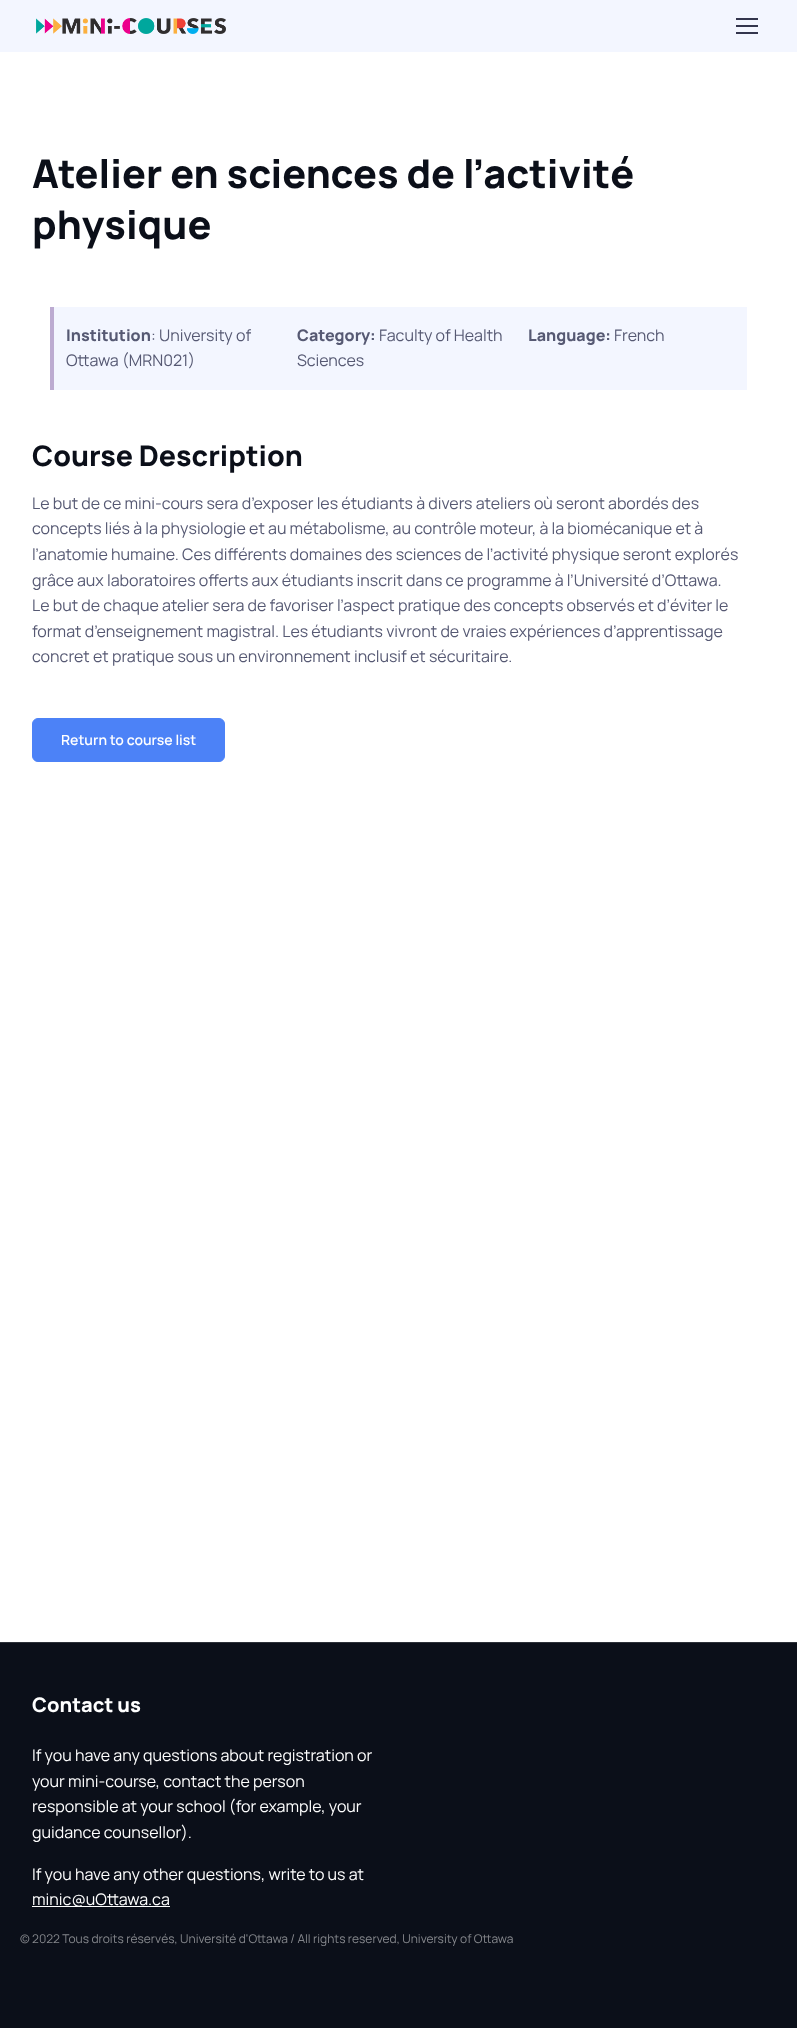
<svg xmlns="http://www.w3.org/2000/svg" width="797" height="2028">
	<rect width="100%" height="100%" fill="#FFFFFF" />
	<rect x="0" y="0" width="797" height="52" fill="#F3F6FF" />
	<image x="36" y="18" width="190" height="16" href="assets/img1.png" />
	<rect x="736" y="25" width="22" height="2" fill="#33354D" />
	<rect x="736" y="18" width="22" height="2" fill="#33354D" />
	<rect x="736" y="32" width="22" height="2" fill="#33354D" />
	<g font-family="Manrope" font-size="39.5" font-weight="800" fill="#0B0F19">
		<text x="32" y="188">Atelier en sciences de l’activité</text>
		<text x="32" y="239">physique</text>
	</g>
	<rect x="54" y="307" width="693" height="83" fill="#F3F6FF" />
	<rect x="50" y="307" width="4" height="83" fill="#BCABD1" />
	<text x="66" y="341" font-family="Manrope" font-size="16" font-weight="800" fill="#565973">Institution</text>
	<g font-family="Manrope" font-size="16" fill="#565973">
		<text x="151" y="341">: University of</text>
		<text x="66" y="366">Ottawa (MRN021)</text>
	</g>
	<text x="297" y="341" font-family="Manrope" font-size="16" font-weight="800" fill="#565973">Category:</text>
	<g font-family="Manrope" font-size="16" fill="#565973">
		<text x="379" y="341">Faculty of Health</text>
		<text x="297" y="366">Sciences</text>
	</g>
	<text x="528" y="341" font-family="Manrope" font-size="16" font-weight="800" fill="#565973">Language:</text>
	<text x="614" y="341" font-family="Manrope" font-size="16" fill="#565973">French</text>
	<text x="32" y="466" font-family="Manrope" font-size="28.4" font-weight="800" fill="#0B0F19">Course Description</text>
	<g font-family="Manrope" font-size="16" fill="#565973">
		<text x="32" y="509">Le but de ce mini-cours sera d’exposer les étudiants à divers ateliers où seront abordés des</text>
		<text x="32" y="534">concepts liés à la physiologie et au métabolisme, au contrôle moteur, à la biomécanique et à</text>
		<text x="32" y="560">l’anatomie humaine. Ces différents domaines des sciences de l’activité physique seront explorés</text>
		<text x="32" y="586">grâce aux laboratoires offerts aux étudiants inscrit dans ce programme à l’Université d’Ottawa.</text>
		<text x="32" y="611">Le but de chaque atelier sera de favoriser l’aspect pratique des concepts observés et d’éviter le</text>
		<text x="32" y="637">format d’enseignement magistral. Les étudiants vivront de vraies expériences d’apprentissage</text>
		<text x="32" y="662">concret et pratique sous un environnement inclusif et sécuritaire.</text>
	</g>
	<rect x="32.5" y="718.5" width="192" height="43" rx="5.5" fill="#4C82F7" stroke="#4C82F7" />
	<text x="61" y="745" font-family="Manrope" font-size="14" font-weight="600" fill="#FFFFFF">Return to course list</text>
	<rect x="0" y="1643" width="797" height="385" fill="#0B0F19" />
	<rect x="0" y="1642" width="797" height="1" fill="#2D3139" />
	<text x="32" y="1712" font-family="Manrope" font-size="20" font-weight="800" fill="#FFFFFF">Contact us</text>
	<g font-family="Manrope" font-size="16" fill="#FFFFFF">
		<text x="32" y="1761">If you have any questions about registration or</text>
		<text x="32" y="1787">your mini-course, contact the person</text>
		<text x="32" y="1812">responsible at your school (for example, your</text>
		<text x="32" y="1838">guidance counsellor).</text>
		<text x="32" y="1880">If you have any other questions, write to us at</text>
	</g>
	<rect x="32" y="1906" width="138" height="1" fill="#FFFFFF" />
	<text x="32" y="1905" font-family="Manrope" font-size="16" fill="#FFFFFF">minic@uOttawa.ca</text>
	<text x="20" y="1943" font-family="Manrope" font-size="12" fill="#85878C">© 2022 Tous droits réservés, Université d'Ottawa / All rights reserved, University of Ottawa</text>
</svg>
